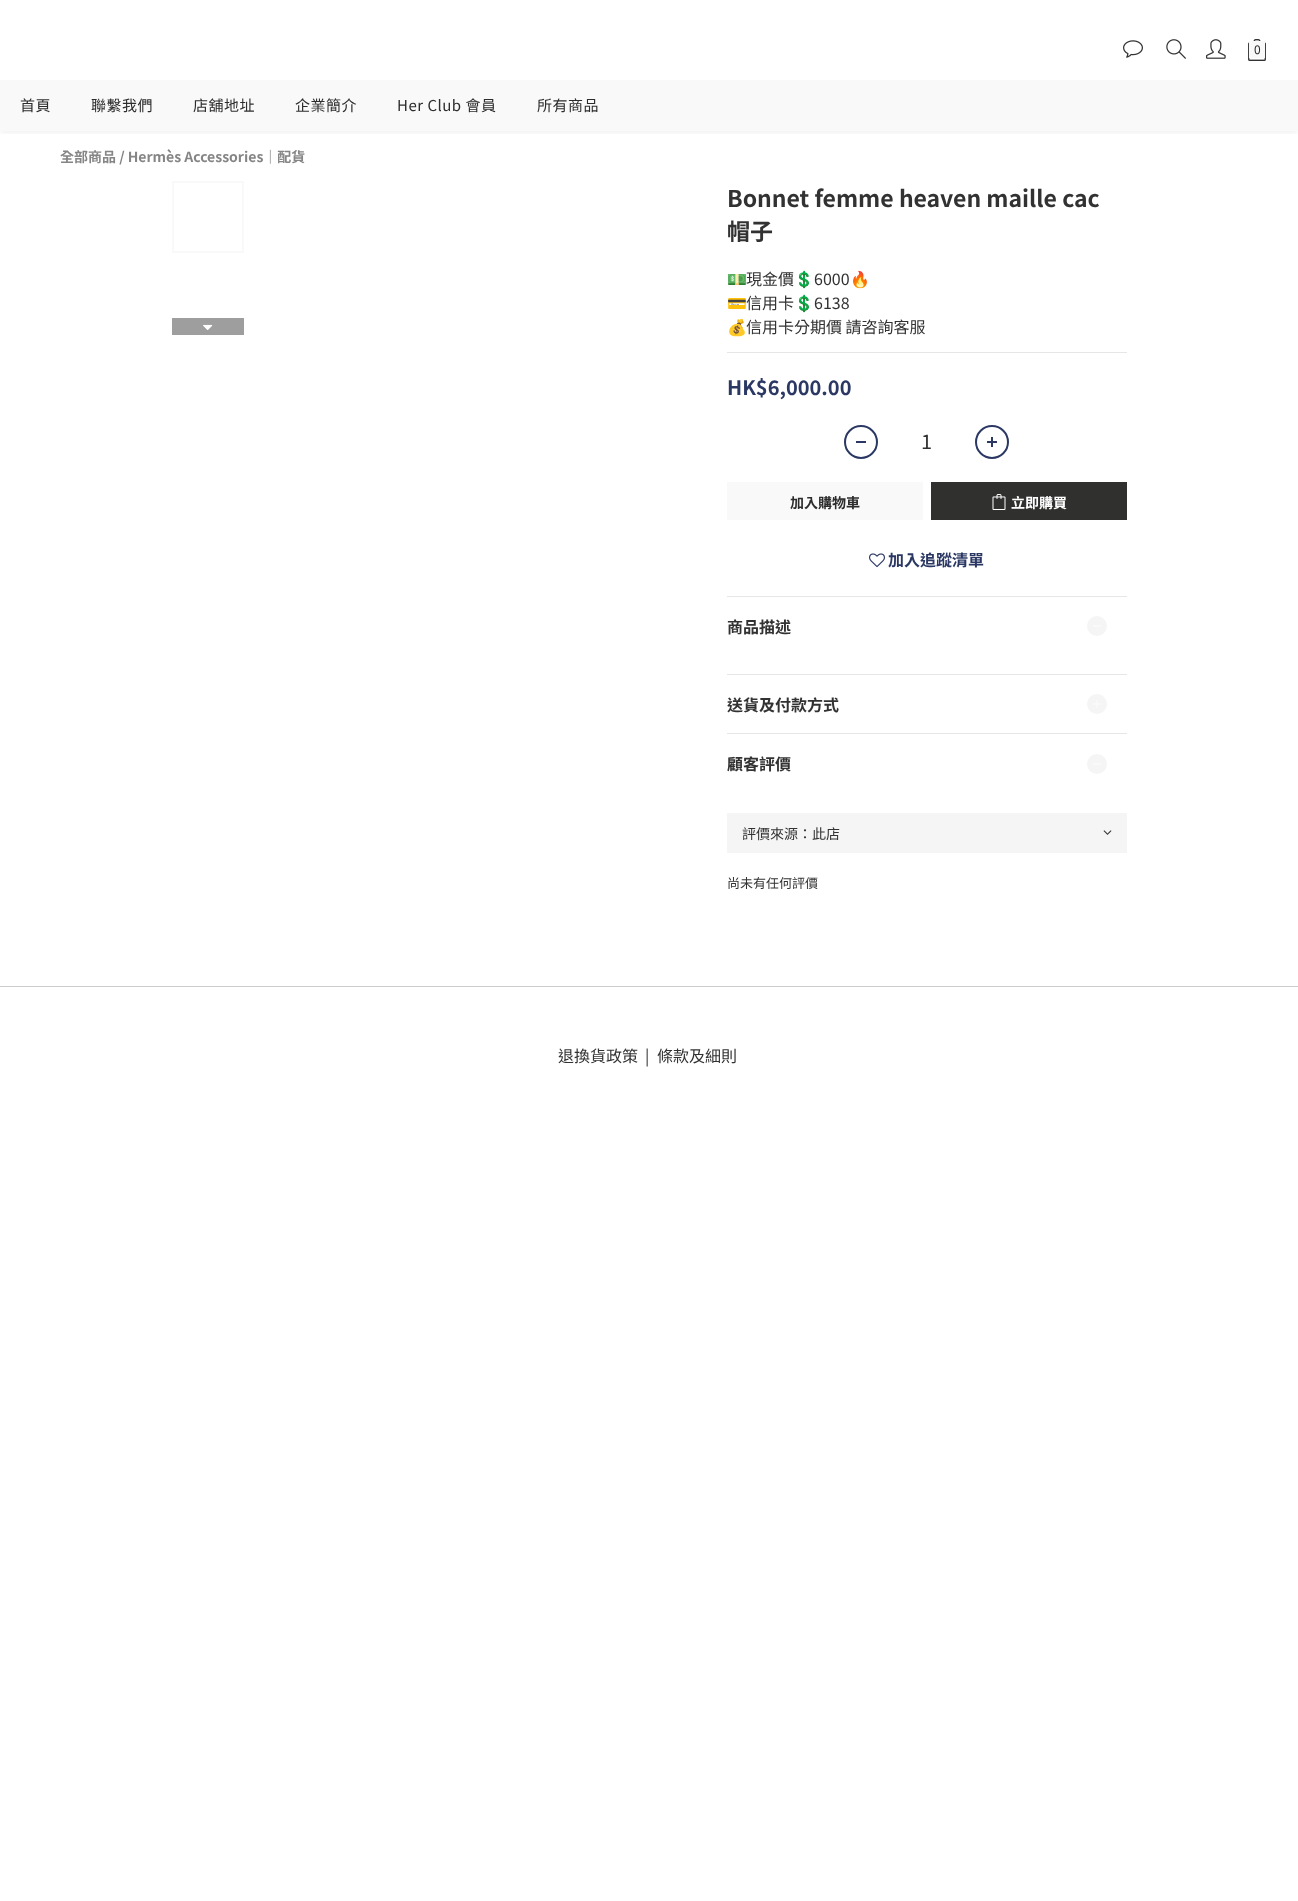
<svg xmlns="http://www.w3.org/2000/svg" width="1298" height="1901">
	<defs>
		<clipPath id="clip1"><rect x="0" y="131" width="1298" height="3" /></clipPath>
	</defs>
	<rect width="100%" height="100%" fill="#FFFFFF" />
	<g clip-path="url(#clip1)">
		<rect x="0" y="22" width="1298" height="111" fill="#000000" fill-opacity="0.06" filter="blur(3px)" />
	</g>
	<image x="1123" y="40" width="20" height="18" href="assets/img1.png" />
	<image x="1166" y="39" width="20" height="20" href="assets/img2.png" />
	<image x="1206" y="39" width="20" height="20" href="assets/img3.png" />
	<image x="1248" y="39" width="18" height="22" href="assets/img4.png" />
	<rect x="1249" y="41" width="16" height="17" fill="#F9F9F9" />
	<text x="1254" y="54" font-family="Noto Sans TC" font-size="12" fill="#2C2C2C">0</text>
	<rect x="0" y="80" width="1298" height="51" fill="#F9F9F9" />
	<g font-family="Noto Sans TC" font-size="15" letter-spacing="0.5" fill="#2C2C2C">
		<text x="20" y="111">首頁</text>
		<text x="91" y="111">聯繫我們</text>
		<text x="193" y="111">店舖地址</text>
		<text x="295" y="111">企業簡介</text>
		<text x="397" y="111">Her Club 會員</text>
		<text x="537" y="111">所有商品</text>
	</g>
	<text x="60" y="162" font-family="Noto Sans TC" font-size="14" font-weight="700" fill="#858585">全部商品 / Hermès Accessories｜配貨</text>
	<rect x="173" y="182" width="70" height="70" fill="none" stroke="#F9F9F9" stroke-width="2" />
	<rect x="172" y="318" width="72" height="17" fill="#9E9E9E" />
	<image x="203" y="324" width="10" height="6" href="assets/img5.png" />
	<g font-family="Noto Sans TC" font-size="23" font-weight="700" fill="#323232">
		<text x="727" y="207">Bonnet femme heaven maille cac</text>
		<text x="727" y="240">帽子</text>
	</g>
	<text x="727" y="285" font-family="Noto Color Emoji" font-size="16" fill="#323232">💵</text>
	<text x="746" y="285" font-family="Noto Sans TC" font-size="16" fill="#323232">現金價</text>
	<text x="794" y="285" font-family="Noto Color Emoji" font-size="16" fill="#323232">💲</text>
	<text x="814" y="285" font-family="Noto Sans TC" font-size="16" fill="#323232">6000</text>
	<g font-family="Noto Color Emoji" font-size="16" fill="#323232">
		<text x="850" y="285">🔥</text>
		<text x="727" y="309">💳</text>
	</g>
	<text x="746" y="309" font-family="Noto Sans TC" font-size="16" fill="#323232">信用卡</text>
	<text x="794" y="309" font-family="Noto Color Emoji" font-size="16" fill="#323232">💲</text>
	<text x="814" y="309" font-family="Noto Sans TC" font-size="16" fill="#323232">6138</text>
	<text x="727" y="333" font-family="Noto Color Emoji" font-size="16" fill="#323232">💰</text>
	<text x="746" y="333" font-family="Noto Sans TC" font-size="16" fill="#323232">信用卡分期價 請咨詢客服</text>
	<rect x="727" y="352" width="400" height="1" fill="#E6E6E6" />
	<text x="727" y="395" font-family="Noto Sans TC" font-size="20" font-weight="700" fill="#2B3864">HK$6,000.00</text>
	<circle cx="861" cy="442" r="16" fill="none" stroke="#2B3864" stroke-width="2" />
	<rect x="856" y="441" width="10" height="2" fill="#2B3864" />
	<text x="921" y="449" font-family="Noto Sans TC" font-size="20" fill="#323232">1</text>
	<circle cx="992" cy="442" r="16" fill="none" stroke="#2B3864" stroke-width="2" />
	<rect x="987" y="441" width="10" height="2" fill="#2B3864" />
	<rect x="991" y="437" width="2" height="10" fill="#2B3864" />
	<rect x="727" y="482" width="196" height="38" fill="#F9F9F9" />
	<text x="790" y="508" font-family="Noto Sans TC" font-size="14" font-weight="700" fill="#2C2C2C">加入購物車</text>
	<rect x="931" y="482" width="196" height="38" fill="#30302F" />
	<image x="992" y="494" width="14" height="16" href="assets/img6.png" />
	<text x="1011" y="508" font-family="Noto Sans TC" font-size="14" font-weight="700" fill="#FFFFFF">立即購買</text>
	<image x="869" y="553" width="16" height="15" href="assets/img7.png" />
	<text x="888" y="566" font-family="Noto Sans TC" font-size="16" font-weight="700" fill="#2B3864">加入追蹤清單</text>
	<rect x="727" y="596" width="400" height="1" fill="#E6E6E6" />
	<text x="727" y="633" font-family="Noto Sans TC" font-size="16" font-weight="700" fill="#323232">商品描述</text>
	<circle cx="1097" cy="626" r="10" fill="#F5F5F5" />
	<rect x="1093" y="625" width="8" height="2" fill="#F9F9F9" />
	<rect x="727" y="674" width="400" height="1" fill="#E6E6E6" />
	<text x="727" y="711" font-family="Noto Sans TC" font-size="16" font-weight="700" fill="#323232">送貨及付款方式</text>
	<circle cx="1097" cy="704" r="10" fill="#F5F5F5" />
	<rect x="1093" y="703" width="8" height="2" fill="#F9F9F9" />
	<rect x="1096" y="700" width="2" height="8" fill="#F9F9F9" />
	<rect x="727" y="733" width="400" height="1" fill="#E6E6E6" />
	<text x="727" y="770" font-family="Noto Sans TC" font-size="16" font-weight="700" fill="#323232">顧客評價</text>
	<circle cx="1097" cy="764" r="10" fill="#F5F5F5" />
	<rect x="1093" y="763" width="8" height="2" fill="#F9F9F9" />
	<rect x="727" y="813" width="400" height="40" fill="#F5F5F5" />
	<text x="742" y="839" font-family="Noto Sans TC" font-size="14" fill="#323232">評價來源：此店</text>
	<image x="1103" y="830" width="9" height="5" href="assets/img8.png" />
	<text x="727" y="888" font-family="Noto Sans TC" font-size="13" fill="#323232">尚未有任何評價</text>
	<rect x="0" y="986" width="1298" height="1" fill="#CCCCCC" />
	<g font-family="Noto Sans TC" font-size="16" fill="#323232">
		<text x="558" y="1062">退換貨政策</text>
		<text x="645" y="1062">|</text>
		<text x="657" y="1062">條款及細則</text>
	</g>
</svg>
